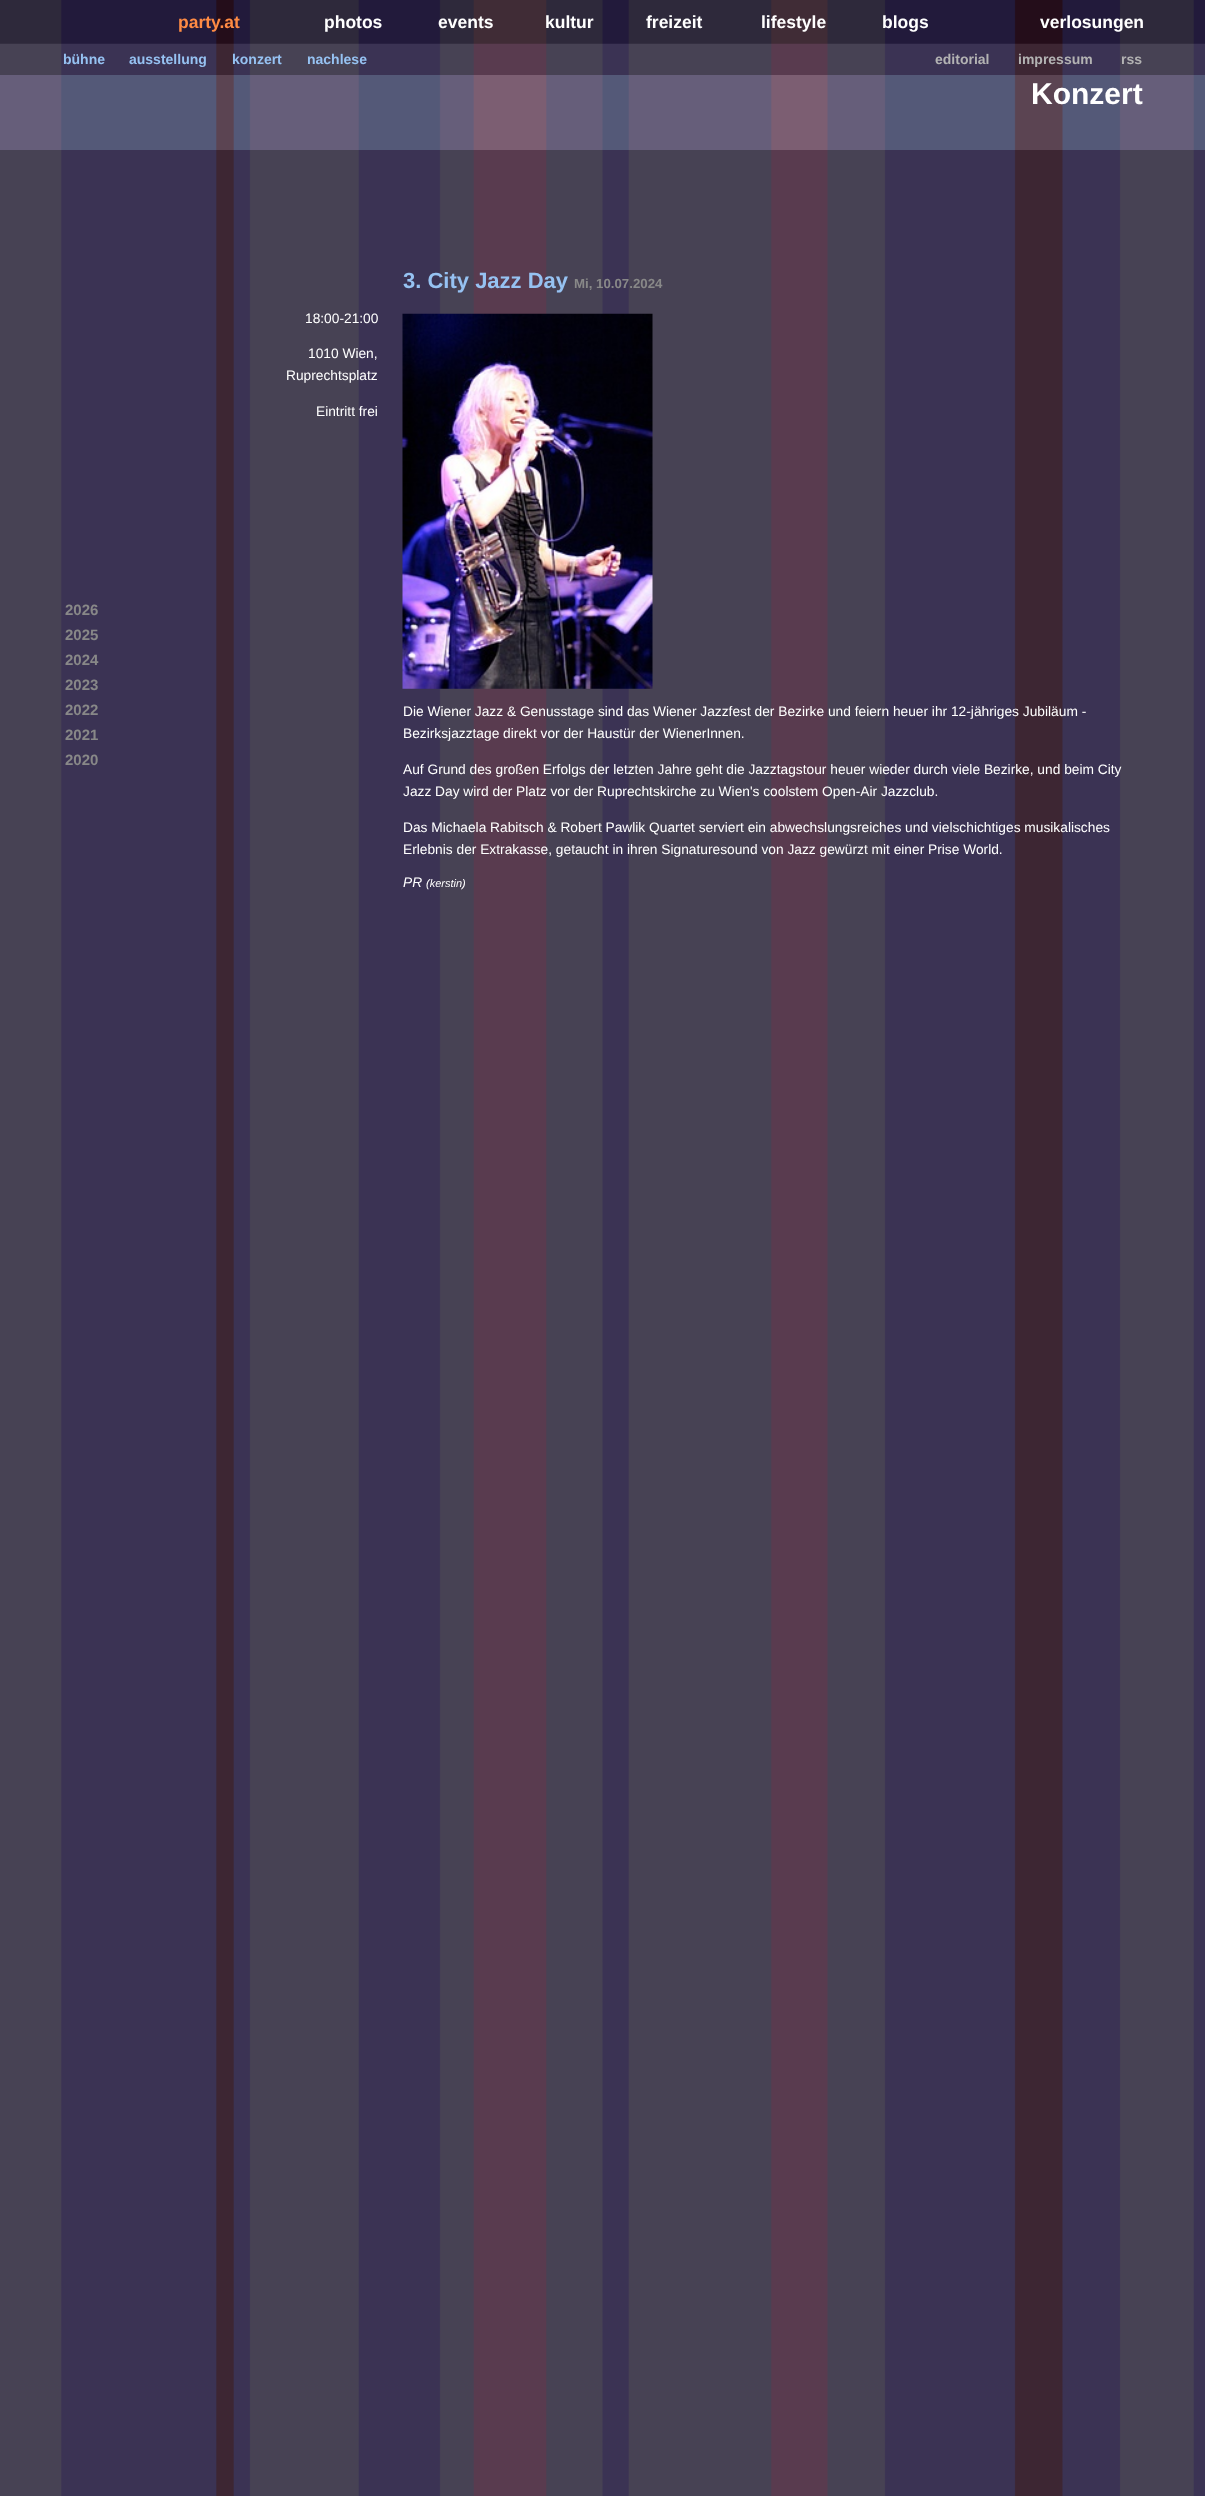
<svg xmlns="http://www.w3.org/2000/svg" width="1205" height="2496">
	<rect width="100%" height="100%" fill="#FFFFFF" />
	<image x="0" y="43" width="1205" height="2453" href="assets/img1.png" />
	<image x="0" y="0" width="1205" height="44" href="assets/img2.png" />
	<text x="178" y="28" font-family="Liberation Sans" font-size="17.5" font-weight="700" fill="#FF8B44">party.at</text>
	<g font-family="Liberation Sans" font-size="17.5" font-weight="700" fill="#FFFFFF">
		<text x="324" y="28">photos</text>
		<text x="438" y="28">events</text>
		<text x="545" y="28">kultur</text>
		<text x="646" y="28">freizeit</text>
		<text x="761" y="28">lifestyle</text>
		<text x="882" y="28">blogs</text>
		<text x="1040" y="28">verlosungen</text>
	</g>
	<g font-family="Liberation Sans" font-size="14" font-weight="700" fill="#96C2F2">
		<text x="63" y="64">bühne</text>
		<text x="129" y="64">ausstellung</text>
		<text x="232" y="64">konzert</text>
		<text x="307" y="64">nachlese</text>
	</g>
	<g font-family="Liberation Sans" font-size="14" font-weight="700" fill="#B3B3B3">
		<text x="935" y="64">editorial</text>
		<text x="1018" y="64">impressum</text>
		<text x="1121" y="64">rss</text>
	</g>
	<image x="0" y="75" width="1205" height="75" href="assets/img3.png" />
	<text x="1031" y="104" font-family="Liberation Sans" font-size="30" font-weight="700" fill="#FFFFFF">Konzert</text>
	<g font-family="Liberation Sans" font-size="15" font-weight="700" fill="#888888">
		<text x="65" y="615">2026</text>
		<text x="65" y="640">2025</text>
		<text x="65" y="665">2024</text>
		<text x="65" y="690">2023</text>
		<text x="65" y="715">2022</text>
		<text x="65" y="740">2021</text>
		<text x="65" y="765">2020</text>
	</g>
	<text x="403" y="288" font-family="Liberation Sans" font-size="22" font-weight="700" fill="#96C2F2">3. City Jazz Day</text>
	<text x="574" y="288" font-family="Liberation Sans" font-size="13.25" font-weight="700" fill="#888888">Mi, 10.07.2024</text>
	<g font-family="Liberation Sans" font-size="13.75" fill="#FFFFFF">
		<text x="305" y="323">18:00-21:00</text>
		<text x="308" y="358">1010 Wien,</text>
		<text x="286" y="380">Ruprechtsplatz</text>
		<text x="316" y="416">Eintritt frei</text>
	</g>
	<image x="402" y="313" width="251" height="376" href="assets/img4.png" />
	<g font-family="Liberation Sans" font-size="13.75" fill="#FFFFFF">
		<text x="403" y="716">Die Wiener Jazz &amp; Genusstage sind das Wiener Jazzfest der Bezirke und feiern heuer ihr 12-jähriges Jubiläum -</text>
		<text x="403" y="738">Bezirksjazztage direkt vor der Haustür der WienerInnen.</text>
		<text x="403" y="774">Auf Grund des großen Erfolgs der letzten Jahre geht die Jazztagstour heuer wieder durch viele Bezirke, und beim City</text>
		<text x="403" y="796">Jazz Day wird der Platz vor der Ruprechtskirche zu Wien's coolstem Open-Air Jazzclub.</text>
		<text x="403" y="832">Das Michaela Rabitsch &amp; Robert Pawlik Quartet serviert ein abwechslungsreiches und vielschichtiges musikalisches</text>
		<text x="403" y="854">Erlebnis der Extrakasse, getaucht in ihren Signaturesound von Jazz gewürzt mit einer Prise World.</text>
	</g>
	<text x="403" y="887" font-family="Liberation Sans" font-size="13.75" font-style="italic" fill="#FFFFFF">PR</text>
	<text x="426" y="887" font-family="Liberation Sans" font-size="11" font-style="italic" fill="#FFFFFF">(kerstin)</text>
</svg>
